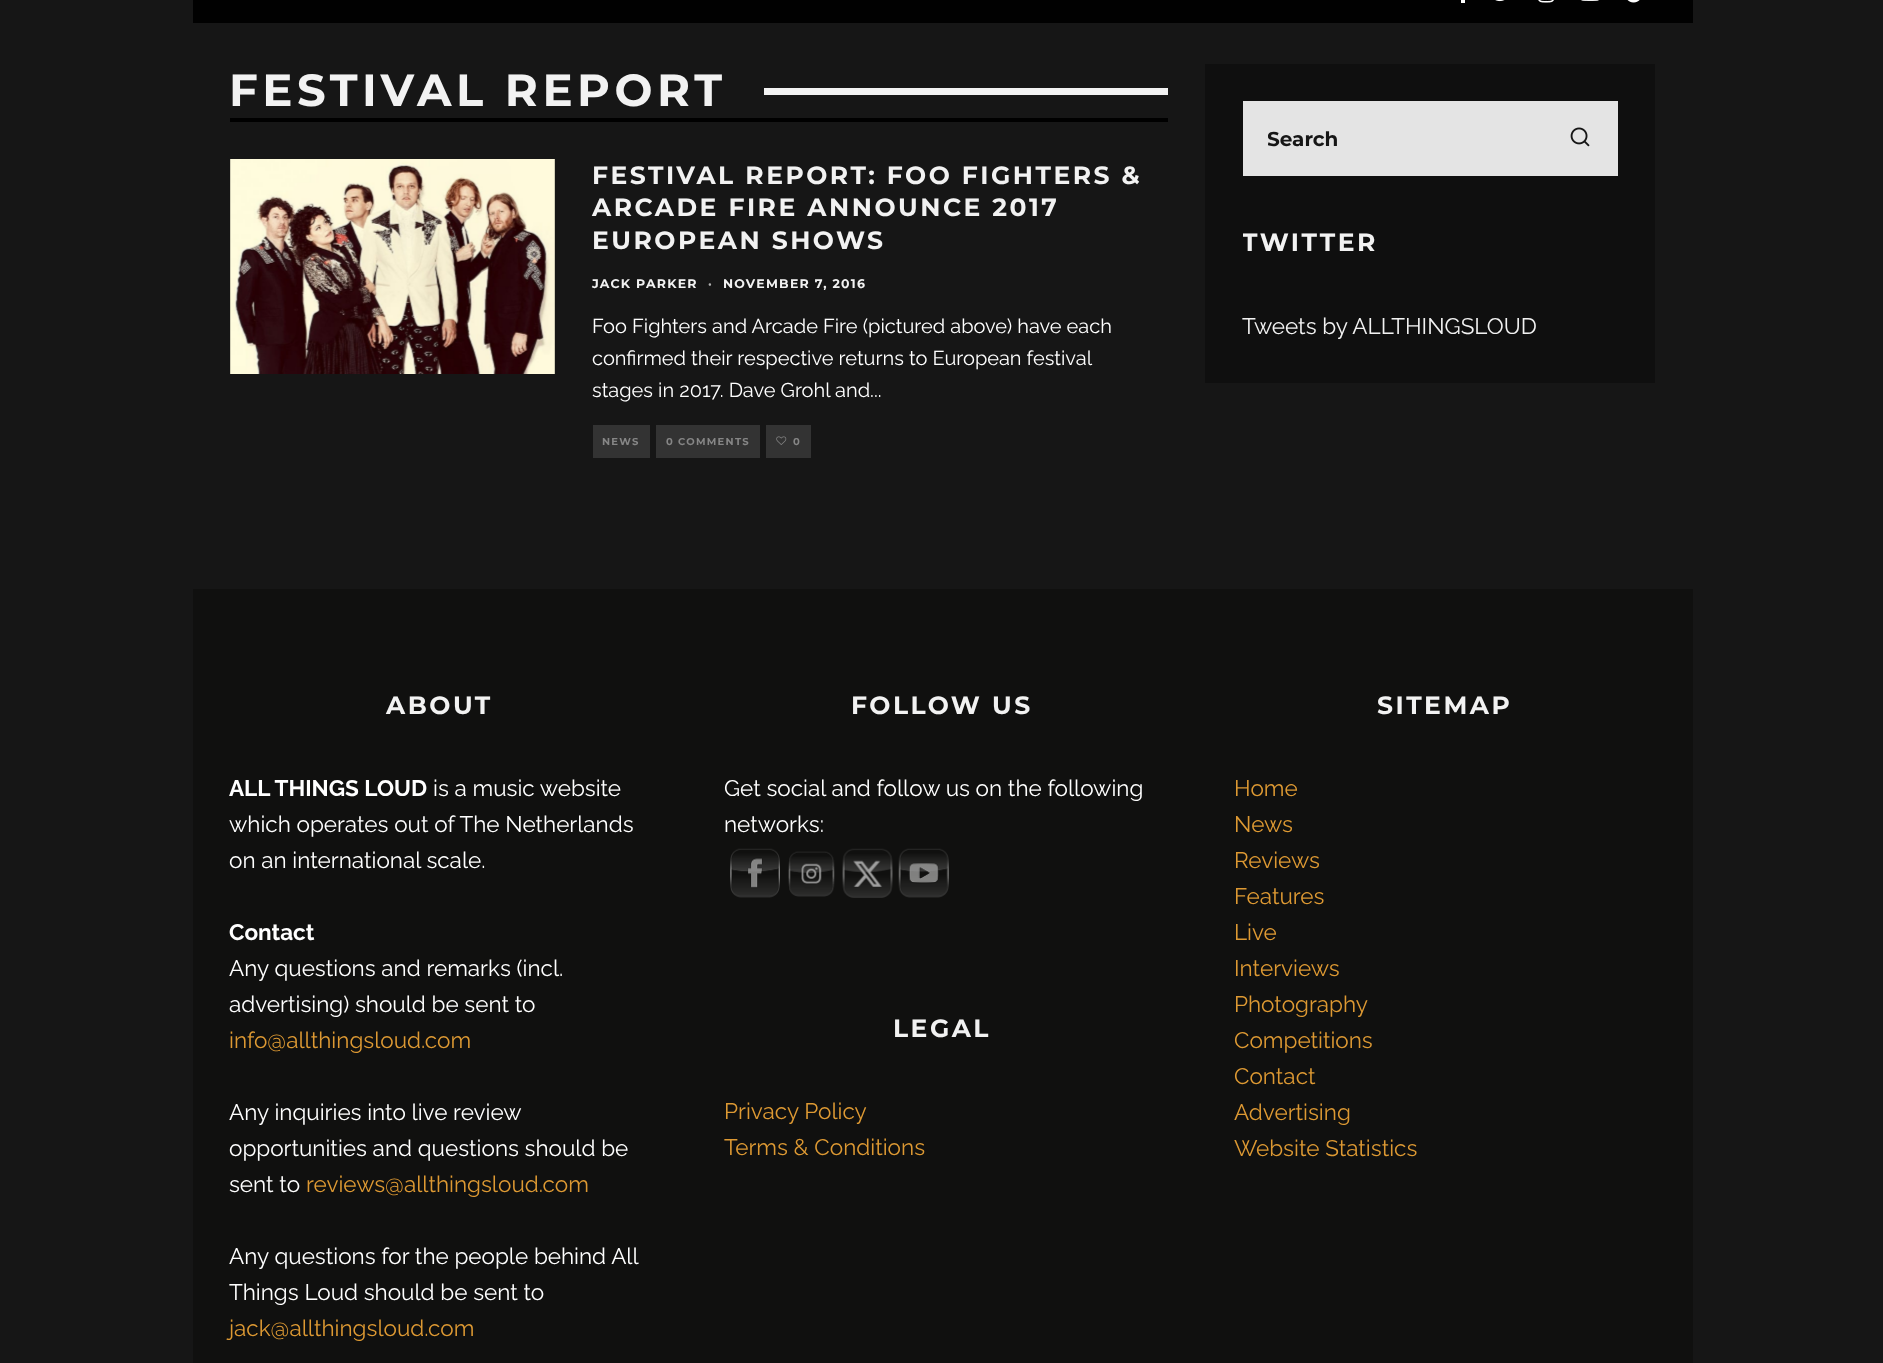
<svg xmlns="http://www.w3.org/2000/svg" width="1883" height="1363">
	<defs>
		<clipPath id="clip1"><rect x="1268" y="128" width="245" height="23" /></clipPath>
		<clipPath id="clip2"><rect x="1243" y="226" width="375" height="119" /></clipPath>
	</defs>
	<rect width="100%" height="100%" fill="#161616" />
	<rect x="193" y="0" width="1500" height="23" fill="#010101" />
	<rect x="1461" y="0" width="4" height="3" fill="#FFFFFF" />
	<image x="1495" y="0" width="10" height="2" href="assets/img1.png" />
	<image x="1538" y="0" width="16" height="3" href="assets/img2.png" />
	<image x="1581" y="0" width="18" height="1" href="assets/img3.png" />
	<image x="1627" y="0" width="13" height="3" href="assets/img4.png" />
	<rect x="230" y="118" width="938" height="4" fill="#000000" />
	<text x="229" y="106" font-family="Montserrat" font-size="45" font-weight="700" letter-spacing="4.5" fill="#F2F2F2">FESTIVAL REPORT</text>
	<rect x="764" y="88" width="404" height="7" fill="#F2F2F2" />
	<image x="230" y="159" width="325" height="215" href="assets/img5.png" />
	<g font-family="Montserrat" font-size="25" font-weight="700" letter-spacing="2.5" fill="#F2F2F2">
		<text x="592" y="184">FESTIVAL REPORT: FOO FIGHTERS &amp;</text>
		<text x="592" y="216">ARCADE FIRE ANNOUNCE 2017</text>
		<text x="592" y="249">EUROPEAN SHOWS</text>
	</g>
	<text x="592" y="288" font-family="Montserrat" font-size="12.5" font-weight="700" letter-spacing="1.25" fill="#F2F2F2">JACK PARKER</text>
	<text x="708" y="288" font-family="Montserrat" font-size="12.5" font-weight="700" letter-spacing="1.25" fill="#B0B0B0">·</text>
	<text x="723" y="288" font-family="Montserrat" font-size="12.5" font-weight="700" letter-spacing="1.25" fill="#F2F2F2">NOVEMBER 7, 2016</text>
	<g font-family="Raleway" font-size="20" fill="#FFFFFF">
		<text x="592" y="333">Foo Fighters and Arcade Fire (pictured above) have each</text>
		<text x="592" y="365">confirmed their respective returns to European festival</text>
		<text x="592" y="397">stages in 2017. Dave Grohl and...</text>
	</g>
	<rect x="593" y="425" width="57" height="33" fill="#333333" />
	<text x="602" y="445" font-family="Montserrat" font-size="10" font-weight="700" letter-spacing="1.25" fill="#868686">NEWS</text>
	<rect x="656" y="425" width="104" height="33" fill="#333333" />
	<text x="666" y="445" font-family="Montserrat" font-size="10" font-weight="700" letter-spacing="1.25" fill="#868686">0 COMMENTS</text>
	<rect x="766" y="425" width="45" height="33" fill="#333333" />
	<image x="776" y="436" width="11" height="9" href="assets/img6.png" />
	<text x="793" y="445" font-family="Montserrat" font-size="10" font-weight="700" letter-spacing="1.25" fill="#868686">0</text>
	<rect x="1205" y="64" width="450" height="319" fill="#0F0F0F" />
	<rect x="1243" y="101" width="375" height="75" fill="#E4E4E4" />
	<g clip-path="url(#clip1)">
		<text x="1267" y="146" font-family="Montserrat" font-size="20" font-weight="700" fill="#161616">Search</text>
	</g>
	<image x="1570" y="127" width="20" height="20" href="assets/img7.png" />
	<g clip-path="url(#clip2)">
		<text x="1242" y="251" font-family="Montserrat" font-size="25" font-weight="700" letter-spacing="2.5" fill="#F2F2F2">TWITTER</text>
	</g>
	<text x="1242" y="334" font-family="Raleway" font-size="22.5" fill="#F2F2F2">Tweets by ALLTHINGSLOUD</text>
	<rect x="193" y="589" width="1500" height="774" fill="#10100F" />
	<text x="386" y="714" font-family="Montserrat" font-size="25" font-weight="700" letter-spacing="2.5" fill="#F2F2F2">ABOUT</text>
	<text x="229" y="796" font-family="Raleway" font-size="22.5" font-weight="700" fill="#FFFFFF">ALL THINGS LOUD</text>
	<g font-family="Raleway" font-size="22.5" fill="#FFFFFF">
		<text x="433" y="796">is a music website</text>
		<text x="229" y="832">which operates out of The Netherlands</text>
		<text x="229" y="868">on an international scale.</text>
	</g>
	<text x="229" y="940" font-family="Raleway" font-size="22.5" font-weight="700" fill="#FFFFFF">Contact</text>
	<g font-family="Raleway" font-size="22.5" fill="#FFFFFF">
		<text x="229" y="976">Any questions and remarks (incl.</text>
		<text x="229" y="1012">advertising) should be sent to</text>
	</g>
	<text x="229" y="1048" font-family="Raleway" font-size="22.5" fill="#DD9933">info@allthingsloud.com</text>
	<g font-family="Raleway" font-size="22.5" fill="#FFFFFF">
		<text x="229" y="1120">Any inquiries into live review</text>
		<text x="229" y="1156">opportunities and questions should be</text>
		<text x="229" y="1192">sent to</text>
	</g>
	<text x="306" y="1192" font-family="Raleway" font-size="22.5" fill="#DD9933">reviews@allthingsloud.com</text>
	<g font-family="Raleway" font-size="22.5" fill="#FFFFFF">
		<text x="229" y="1264">Any questions for the people behind All</text>
		<text x="229" y="1300">Things Loud should be sent to</text>
	</g>
	<text x="229" y="1336" font-family="Raleway" font-size="22.5" fill="#DD9933">jack@allthingsloud.com</text>
	<text x="851" y="714" font-family="Montserrat" font-size="25" font-weight="700" letter-spacing="2.5" fill="#F2F2F2">FOLLOW US</text>
	<g font-family="Raleway" font-size="22.5" fill="#FFFFFF">
		<text x="724" y="796">Get social and follow us on the following</text>
		<text x="724" y="832">networks:</text>
	</g>
	<image x="730" y="848" width="50" height="50" href="assets/img8.png" />
	<image x="788" y="851" width="47" height="46" href="assets/img9.png" />
	<image x="842" y="848" width="51" height="50" href="assets/img10.png" />
	<image x="898" y="848" width="51" height="50" href="assets/img11.png" />
	<text x="893" y="1037" font-family="Montserrat" font-size="25" font-weight="700" letter-spacing="2.5" fill="#F2F2F2">LEGAL</text>
	<g font-family="Raleway" font-size="22.5" fill="#DD9933">
		<text x="724" y="1119">Privacy Policy</text>
		<text x="724" y="1155">Terms &amp; Conditions</text>
	</g>
	<text x="1377" y="714" font-family="Montserrat" font-size="25" font-weight="700" letter-spacing="2.5" fill="#F2F2F2">SITEMAP</text>
	<g font-family="Raleway" font-size="22.5" fill="#DD9933">
		<text x="1234" y="796">Home</text>
		<text x="1234" y="832">News</text>
		<text x="1234" y="868">Reviews</text>
		<text x="1234" y="904">Features</text>
		<text x="1234" y="940">Live</text>
		<text x="1234" y="976">Interviews</text>
		<text x="1234" y="1012">Photography</text>
		<text x="1234" y="1048">Competitions</text>
		<text x="1234" y="1084">Contact</text>
		<text x="1234" y="1120">Advertising</text>
		<text x="1234" y="1156">Website Statistics</text>
	</g>
</svg>
